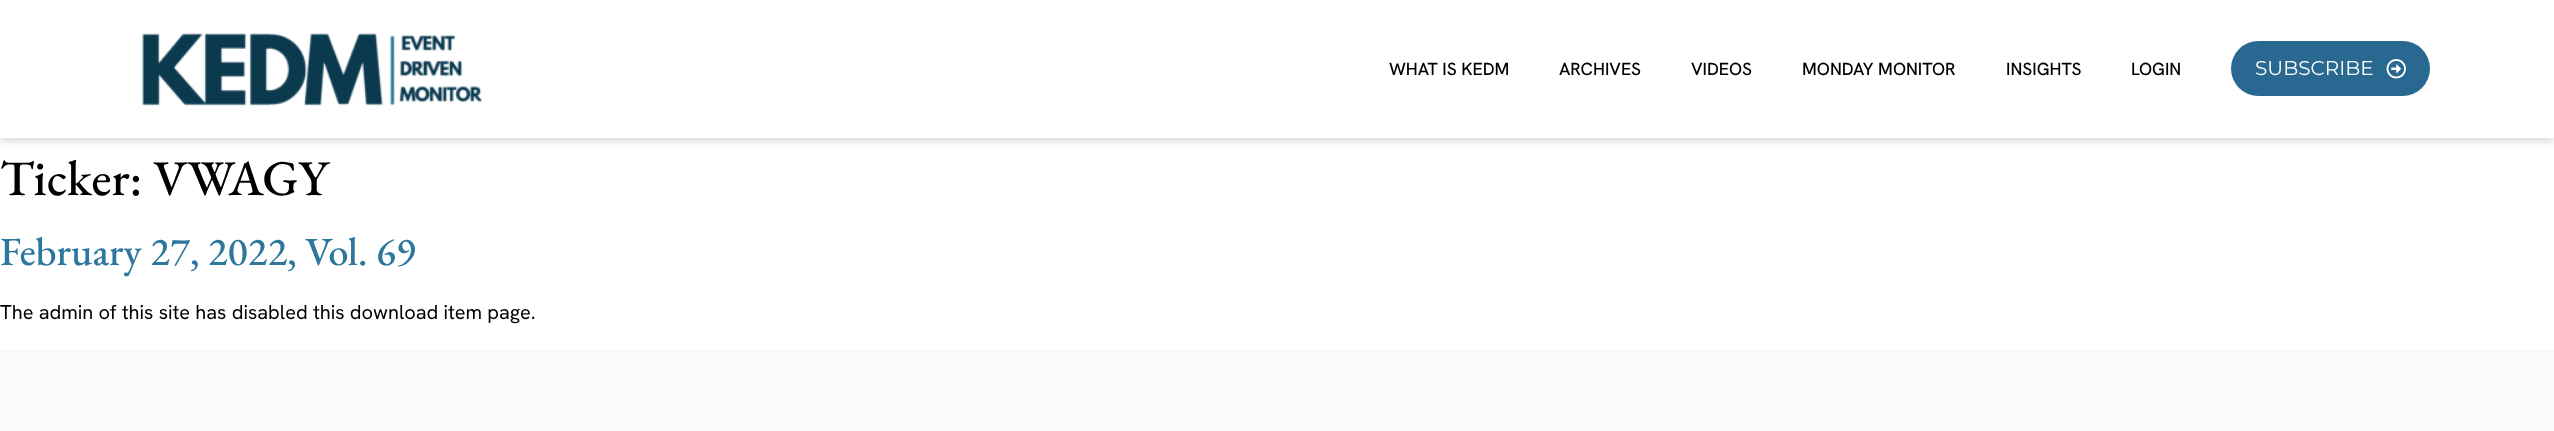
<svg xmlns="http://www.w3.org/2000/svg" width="2554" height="431">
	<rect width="100%" height="100%" fill="#FFFFFF" />
	<rect x="0" y="4" width="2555" height="137" fill="#000000" fill-opacity="0.16" filter="blur(4px)" />
	<rect x="0" y="0" width="2554" height="138" fill="#FFFFFF" />
	<image x="142" y="33" width="341" height="73" href="assets/img1.png" />
	<g font-family="Hanken Grotesk" font-size="17.5" font-weight="500" fill="#000000">
		<text x="1389" y="75">WHAT IS KEDM</text>
		<text x="1559" y="75">ARCHIVES</text>
		<text x="1691" y="75">VIDEOS</text>
		<text x="1802" y="75">MONDAY MONITOR</text>
		<text x="2006" y="75">INSIGHTS</text>
		<text x="2131" y="75">LOGIN</text>
	</g>
	<rect x="2231" y="41" width="199" height="55" rx="27.5" fill="#296891" />
	<text x="2255" y="75" font-family="Montserrat" font-size="20" fill="#FFFFFF">SUBSCRIBE</text>
	<image x="2386" y="59" width="20" height="20" href="assets/img2.png" />
	<text x="0" y="195" font-family="EB Garamond" font-size="50" font-weight="500" fill="#000000">Ticker: VWAGY</text>
	<text x="0" y="265" font-family="EB Garamond" font-size="40" font-weight="500" fill="#2D779C">February 27, 2022, Vol. 69</text>
	<text x="0" y="319" font-family="Hanken Grotesk" font-size="20" fill="#000000">The admin of this site has disabled this download item page.</text>
	<rect x="0" y="350" width="2554" height="81" fill="#FAFAFA" />
</svg>
